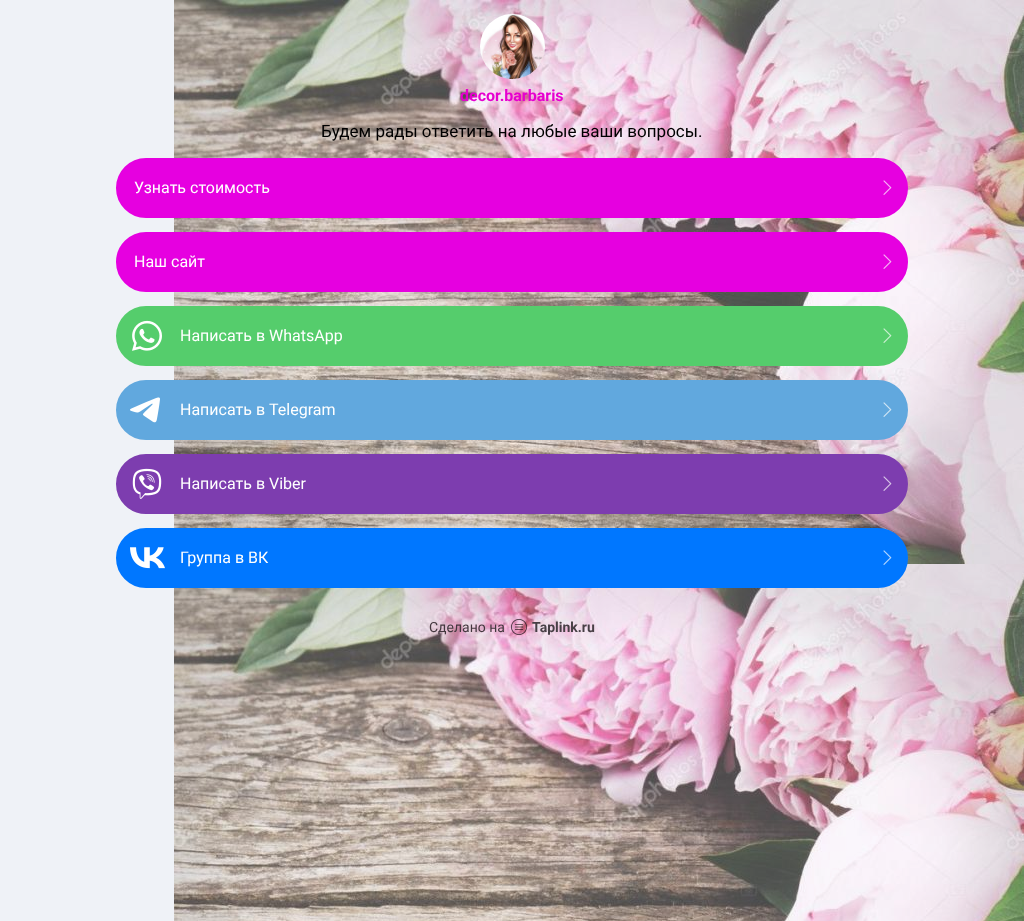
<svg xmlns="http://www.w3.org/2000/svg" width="1024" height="921">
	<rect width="100%" height="100%" fill="#EFF2F7" />
	<image x="174" y="0" width="850" height="921" href="assets/img1.png" />
	<image x="480" y="14" width="65" height="65" href="assets/img2.png" />
	<text x="460" y="101" font-family="Roboto" font-size="16" font-weight="700" fill="#E600CF">decor.barbaris</text>
	<text x="321" y="137" font-family="Roboto" font-size="17" fill="#000000">Будем рады ответить на любые ваши вопросы.</text>
	<rect x="117" y="159" width="790" height="58" rx="29" fill="#E600E0" stroke="#E600E0" stroke-width="2" />
	<text x="134" y="193" font-family="Roboto" font-size="16" fill="#FFFFFF">Узнать стоимость</text>
	<image x="883" y="180" width="9" height="15" href="assets/img3.png" />
	<rect x="117" y="233" width="790" height="58" rx="29" fill="#E600E0" stroke="#E600E0" stroke-width="2" />
	<text x="134" y="267" font-family="Roboto" font-size="16" fill="#FFFFFF">Наш сайт</text>
	<image x="883" y="254" width="9" height="15" href="assets/img3.png" />
	<rect x="117" y="307" width="790" height="58" rx="29" fill="#55CD6C" stroke="#55CD6C" stroke-width="2" />
	<image x="132" y="320" width="30" height="31" href="assets/img4.png" />
	<text x="180" y="341" font-family="Roboto" font-size="16" fill="#FFFFFF">Написать в WhatsApp</text>
	<image x="883" y="328" width="9" height="15" href="assets/img5.png" />
	<rect x="117" y="381" width="790" height="58" rx="29" fill="#61A8DE" stroke="#61A8DE" stroke-width="2" />
	<image x="130" y="397" width="30" height="26" href="assets/img6.png" />
	<text x="180" y="415" font-family="Roboto" font-size="16" fill="#FFFFFF">Написать в Telegram</text>
	<image x="883" y="402" width="9" height="15" href="assets/img7.png" />
	<rect x="117" y="455" width="790" height="58" rx="29" fill="#7D3DAF" stroke="#7D3DAF" stroke-width="2" />
	<image x="132" y="468" width="30" height="31" href="assets/img8.png" />
	<text x="180" y="489" font-family="Roboto" font-size="16" fill="#FFFFFF">Написать в Viber</text>
	<image x="883" y="476" width="9" height="15" href="assets/img9.png" />
	<rect x="117" y="529" width="790" height="58" rx="29" fill="#0077FF" stroke="#0077FF" stroke-width="2" />
	<image x="130" y="547" width="35" height="22" href="assets/img10.png" />
	<text x="180" y="563" font-family="Roboto" font-size="16" fill="#FFFFFF">Группа в ВК</text>
	<image x="883" y="550" width="9" height="15" href="assets/img11.png" />
	<text x="429" y="632" font-family="Roboto" font-size="14" fill="#43373E">Сделано на</text>
	<image x="511" y="619" width="16" height="16" href="assets/img12.png" />
	<text x="532" y="632" font-family="Roboto" font-size="14" font-weight="700" fill="#473F45">Taplink.ru</text>
</svg>
